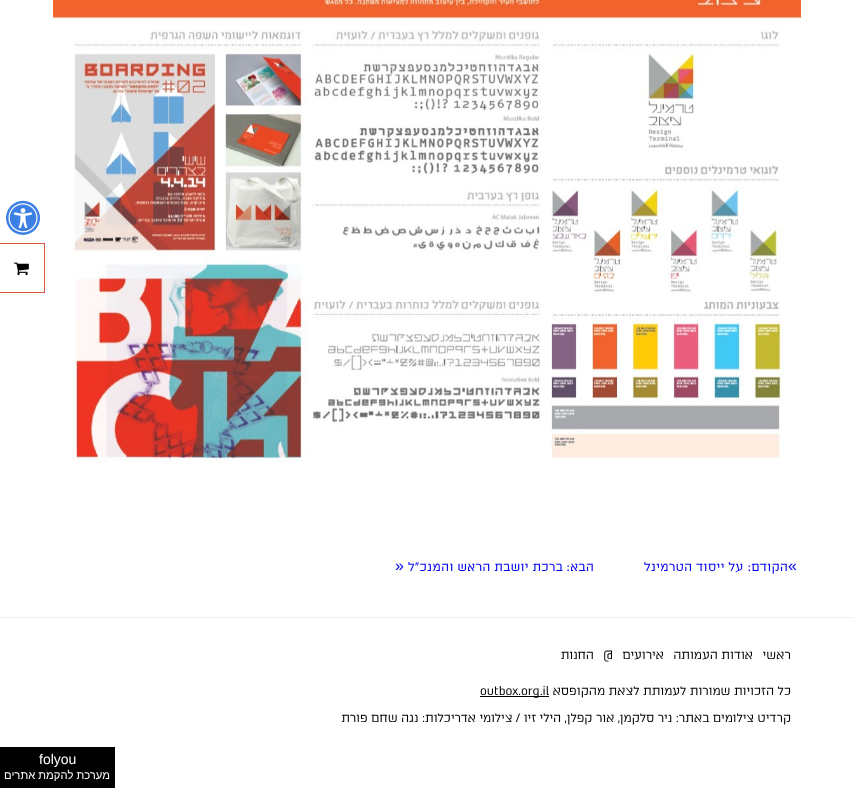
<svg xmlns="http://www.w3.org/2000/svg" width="854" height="788">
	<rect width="100%" height="100%" fill="#FFFFFF" />
	<image x="6" y="200" width="34" height="35" href="assets/img1.png" />
	<rect x="0" y="243" width="45" height="1" fill="#E25740" />
	<rect x="44" y="243" width="1" height="50" fill="#E25740" />
	<rect x="0" y="292" width="45" height="1" fill="#E25740" />
	<image x="14" y="262" width="15" height="14" href="assets/img2.png" />
	<image x="53" y="0" width="748" height="462" href="assets/img3.png" />
	<text x="788" y="571" font-family="Liberation Sans" font-size="16" fill="#0000EE">«</text>
	<g font-family="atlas" font-size="14" direction="rtl" fill="#0000EE">
		<text x="788" y="571">הקודם:</text>
		<text x="743" y="571">על ייסוד הטרמינל</text>
		<text x="594" y="571">הבא:</text>
		<text x="563" y="571">ברכת יושבת הראש והמנכ"ל</text>
	</g>
	<text x="395" y="571" font-family="Liberation Sans" font-size="16" fill="#0000EE">»</text>
	<rect x="0" y="617" width="854" height="1" fill="#F0F0F0" />
	<g font-family="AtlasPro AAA" font-size="12" direction="rtl" fill="#000000">
		<text x="791" y="659">ראשי</text>
		<text x="753" y="659">אודות העמותה</text>
		<text x="664" y="659">אירועים</text>
	</g>
	<text x="603" y="659" font-family="AtlasPro AAA" font-size="12" fill="#000000">@</text>
	<g font-family="AtlasPro AAA" font-size="12" direction="rtl" fill="#000000">
		<text x="594" y="659">החנות</text>
		<text x="791" y="695">כל הזכויות שמורות לעמותת לצאת מהקופסא</text>
	</g>
	<rect x="480" y="696" width="69" height="1" fill="#000000" />
	<text x="480" y="695" font-family="AtlasPro AAA" font-size="12" fill="#000000">outbox.org.il</text>
	<text x="791" y="722" font-family="AtlasPro AAA" font-size="12" direction="rtl" fill="#000000">קרדיט צילומים באתר: ניר סלקמן, אור קפלן, הילי זיו / צילומי אדריכלות: נגה שחם פורת</text>
	<rect x="0" y="747" width="115" height="41" fill="#000000" />
	<text x="39" y="764" font-family="Liberation Sans" font-size="14" fill="#FFFFFF">folyou</text>
	<text x="110" y="779" font-family="Liberation Sans" font-size="11.25" direction="rtl" fill="#FFFFFF">מערכת להקמת אתרים</text>
</svg>
